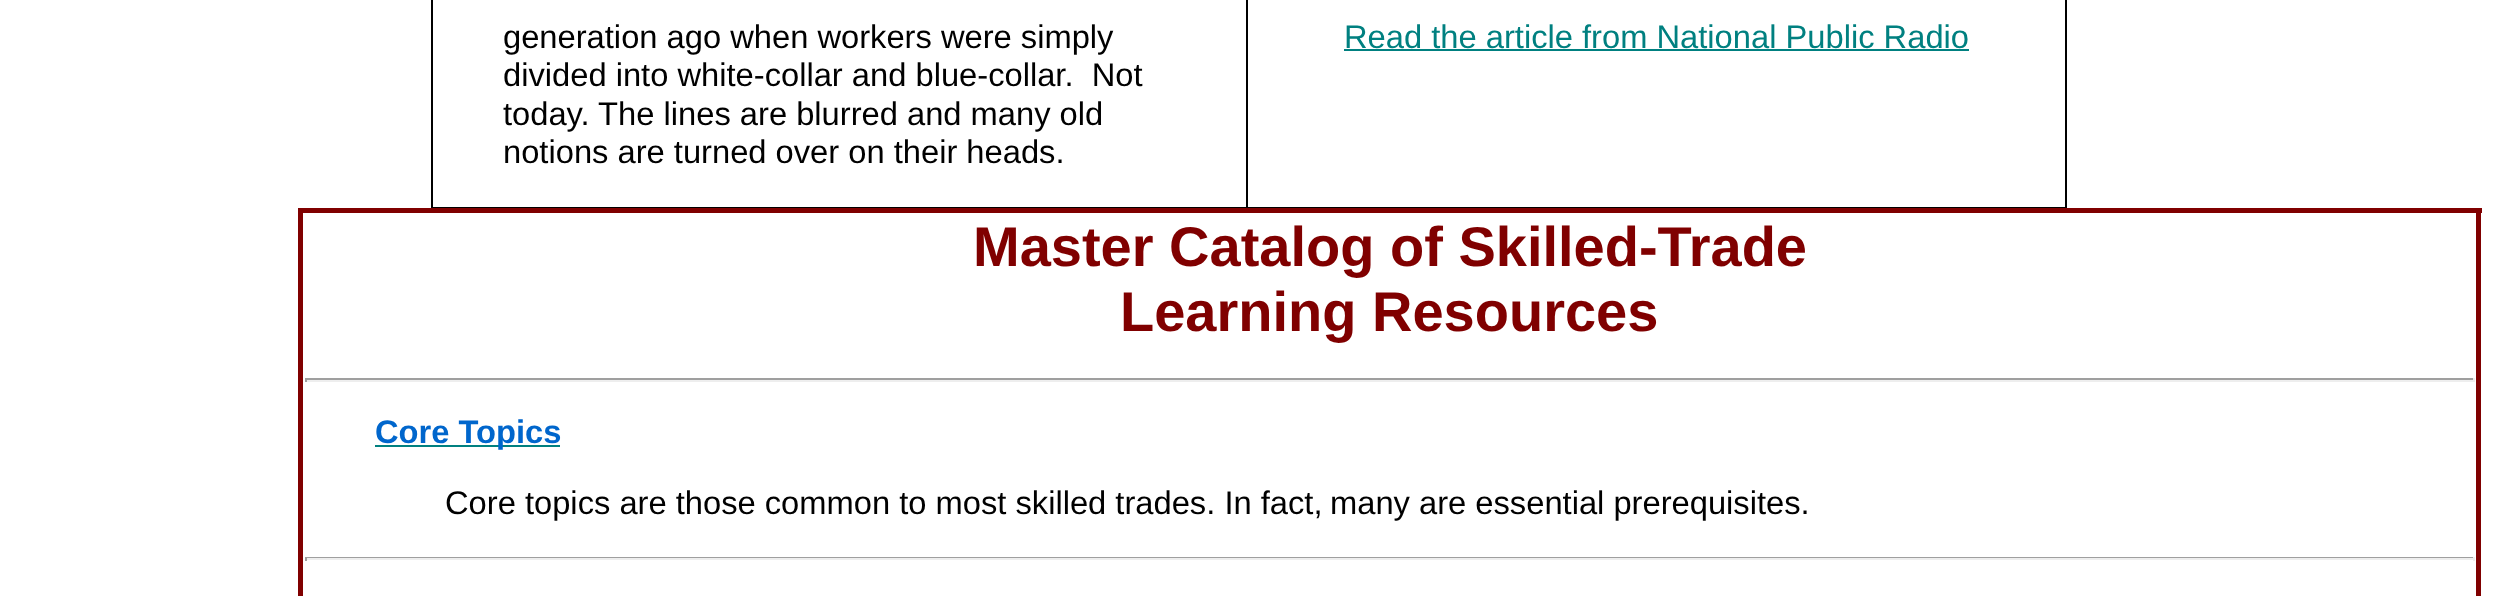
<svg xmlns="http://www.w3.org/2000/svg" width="2494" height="596">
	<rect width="100%" height="100%" fill="#FFFFFF" />
	<rect x="2065" y="0" width="2" height="208" fill="#000000" />
	<rect x="1246" y="207" width="821" height="1" fill="#000000" />
	<rect x="1246" y="0" width="2" height="208" fill="#000000" />
	<rect x="431" y="207" width="817" height="1" fill="#000000" />
	<rect x="431" y="0" width="2" height="208" fill="#000000" />
	<g font-family="Liberation Sans" font-size="32.7" fill="#000000">
		<text x="503" y="48">generation ago when workers were simply</text>
		<text x="503" y="86" xml:space="preserve">divided into white-collar and blue-collar.  Not</text>
		<text x="503" y="125">today. The lines are blurred and many old</text>
		<text x="503" y="163">notions are turned over on their heads.</text>
	</g>
	<text x="1344" y="48" font-family="Liberation Sans" font-size="32.7" fill="#008080">Read the article from National Public Radio</text>
	<rect x="1344" y="49" width="625" height="2" fill="#008080" />
	<rect x="298" y="208" width="2184" height="5" fill="#800000" />
	<rect x="2476" y="208" width="5" height="388" fill="#800000" />
	<rect x="298" y="208" width="5" height="388" fill="#800000" />
	<g font-family="Liberation Sans" font-size="56" font-weight="700" fill="#800000">
		<text x="973" y="266">Master Catalog of Skilled-Trade</text>
		<text x="1120" y="331">Learning Resources</text>
	</g>
	<rect x="305" y="378" width="2170" height="2" fill="#9F9F9F" />
	<rect x="2473" y="378" width="2" height="4" fill="#EEEEEE" />
	<rect x="305" y="380" width="2170" height="2" fill="#EEEEEE" />
	<rect x="305" y="378" width="2" height="4" fill="#9F9F9F" />
	<rect x="375" y="445" width="185" height="2" fill="#008080" />
	<text x="375" y="443" font-family="Liberation Sans" font-size="32.7" font-weight="700" fill="#0066CC">Core Topics</text>
	<g font-family="Liberation Sans" font-size="32.7" fill="#000000">
		<text x="445" y="514">Core topics are those common to most skilled trades. In fact,</text>
		<text x="1330" y="514">many are essential prerequisites.</text>
	</g>
	<rect x="305" y="557" width="2170" height="1" fill="#9F9F9F" />
	<rect x="2473" y="557" width="2" height="4" fill="#EEEEEE" />
	<rect x="305" y="558" width="2170" height="2" fill="#EEEEEE" />
	<rect x="305" y="557" width="2" height="4" fill="#9F9F9F" />
</svg>
